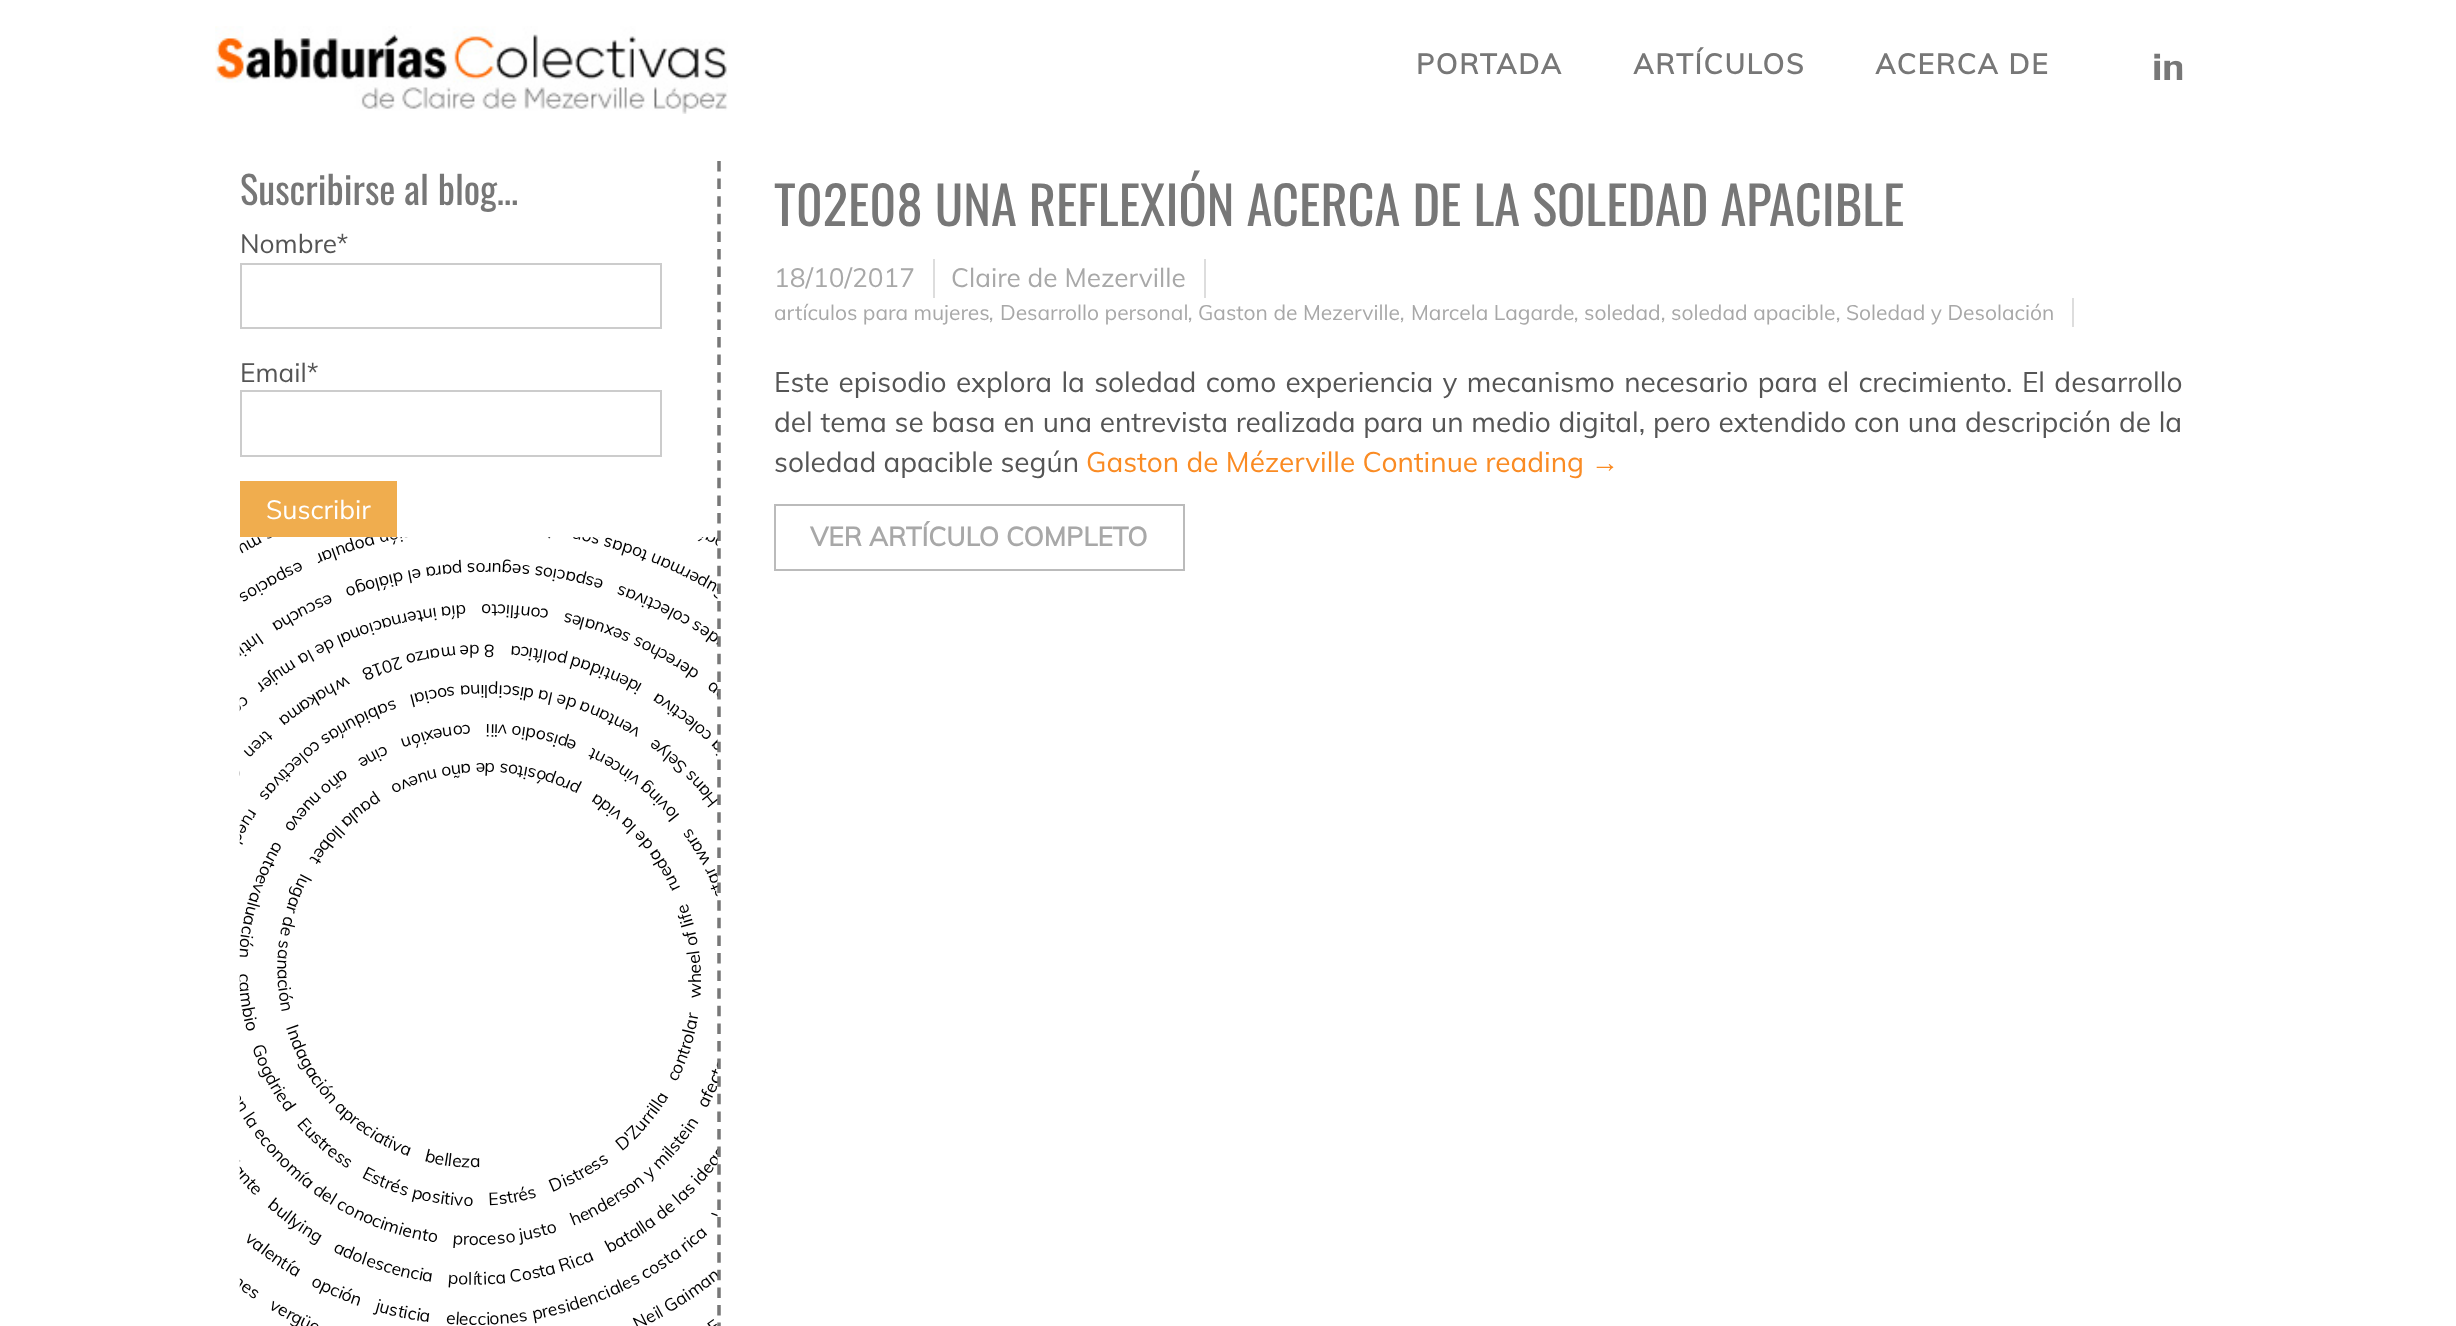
<svg xmlns="http://www.w3.org/2000/svg" width="2456" height="1326">
	<rect width="100%" height="100%" fill="#FFFFFF" />
	<image x="215" y="26" width="513" height="88" href="assets/img1.png" />
	<g font-family="Muli" font-size="28" font-weight="700" letter-spacing="1.75" fill="#777777">
		<text x="1416" y="74">PORTADA</text>
		<text x="1633" y="74">ARTÍCULOS</text>
		<text x="1875" y="74">ACERCA DE</text>
	</g>
	<image x="2154" y="53" width="29" height="27" href="assets/img2.png" />
	<path d="M719 161V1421" fill="none" stroke="#777777" stroke-width="3.5" stroke-dasharray="10.5 7.1" />
	<text x="240" y="205" font-family="Oswald" font-size="38.5" fill="#777777">Suscribirse al blog…</text>
	<text x="240" y="253" font-family="Muli" font-size="26.25" fill="#555555">Nombre*</text>
	<rect x="241" y="264" width="420" height="64" fill="none" stroke="#CCCCCC" stroke-width="2" />
	<text x="240" y="382" font-family="Muli" font-size="26.25" fill="#555555">Email*</text>
	<rect x="241" y="391" width="420" height="65" fill="none" stroke="#CCCCCC" stroke-width="2" />
	<rect x="240" y="481" width="157" height="56" fill="#F0AD4E" />
	<text x="266" y="519" font-family="Muli" font-size="26.25" fill="#FFFFFF">Suscribir</text>
	<image x="239" y="537" width="479" height="789" href="assets/img3.png" />
	<text x="774" y="226" font-family="Oswald" font-size="52.5" fill="#777777">T02E08 UNA REFLEXIÓN ACERCA DE LA SOLEDAD APACIBLE</text>
	<rect x="933" y="259" width="2" height="39" fill="#DDDDDD" />
	<text x="774" y="287" font-family="Muli" font-size="26.25" fill="#A8A8A8">18/10/2017</text>
	<rect x="1204" y="259" width="2" height="39" fill="#DDDDDD" />
	<text x="951" y="287" font-family="Muli" font-size="26.25" fill="#A8A8A8">Claire de Mezerville</text>
	<rect x="2072" y="298" width="2" height="29" fill="#DDDDDD" />
	<text x="774" y="320" font-family="Muli" font-size="21" fill="#A8A8A8">artículos para mujeres</text>
	<text x="989" y="320" font-family="Muli" font-size="21" font-style="italic" fill="#A8A8A8">,</text>
	<text x="1000" y="320" font-family="Muli" font-size="21" fill="#A8A8A8">Desarrollo personal</text>
	<text x="1188" y="320" font-family="Muli" font-size="21" font-style="italic" fill="#A8A8A8">,</text>
	<text x="1198" y="320" font-family="Muli" font-size="21" fill="#A8A8A8">Gaston de Mezerville</text>
	<text x="1400" y="320" font-family="Muli" font-size="21" font-style="italic" fill="#A8A8A8">,</text>
	<text x="1411" y="320" font-family="Muli" font-size="21" fill="#A8A8A8">Marcela Lagarde</text>
	<text x="1574" y="320" font-family="Muli" font-size="21" font-style="italic" fill="#A8A8A8">,</text>
	<text x="1584" y="320" font-family="Muli" font-size="21" fill="#A8A8A8">soledad</text>
	<text x="1661" y="320" font-family="Muli" font-size="21" font-style="italic" fill="#A8A8A8">,</text>
	<text x="1671" y="320" font-family="Muli" font-size="21" fill="#A8A8A8">soledad apacible</text>
	<text x="1836" y="320" font-family="Muli" font-size="21" font-style="italic" fill="#A8A8A8">,</text>
	<text x="1846" y="320" font-family="Muli" font-size="21" fill="#A8A8A8">Soledad y Desolación</text>
	<g font-family="Muli" font-size="28" fill="#555555">
		<text x="774" y="392" word-spacing="2">Este episodio explora la soledad como experiencia y mecanismo necesario para el crecimiento. El desarrollo</text>
		<text x="774" y="432" word-spacing="0.4">del tema se basa en una entrevista realizada para un medio digital, pero extendido con una descripción de la</text>
		<text x="774" y="472">soledad apacible según</text>
	</g>
	<text x="1086" y="472" font-family="Muli" font-size="28" fill="#FA8B23">Gaston de Mézerville Continue reading</text>
	<text x="1591" y="472" font-family="Liberation Serif" font-size="28" fill="#FA8B23">→</text>
	<rect x="775" y="505" width="409" height="65" fill="none" stroke="#BBBBBB" stroke-width="2" />
	<text x="810" y="546" font-family="Muli" font-size="26.25" font-weight="700" fill="#A8A8A8">VER ARTÍCULO COMPLETO</text>
</svg>
